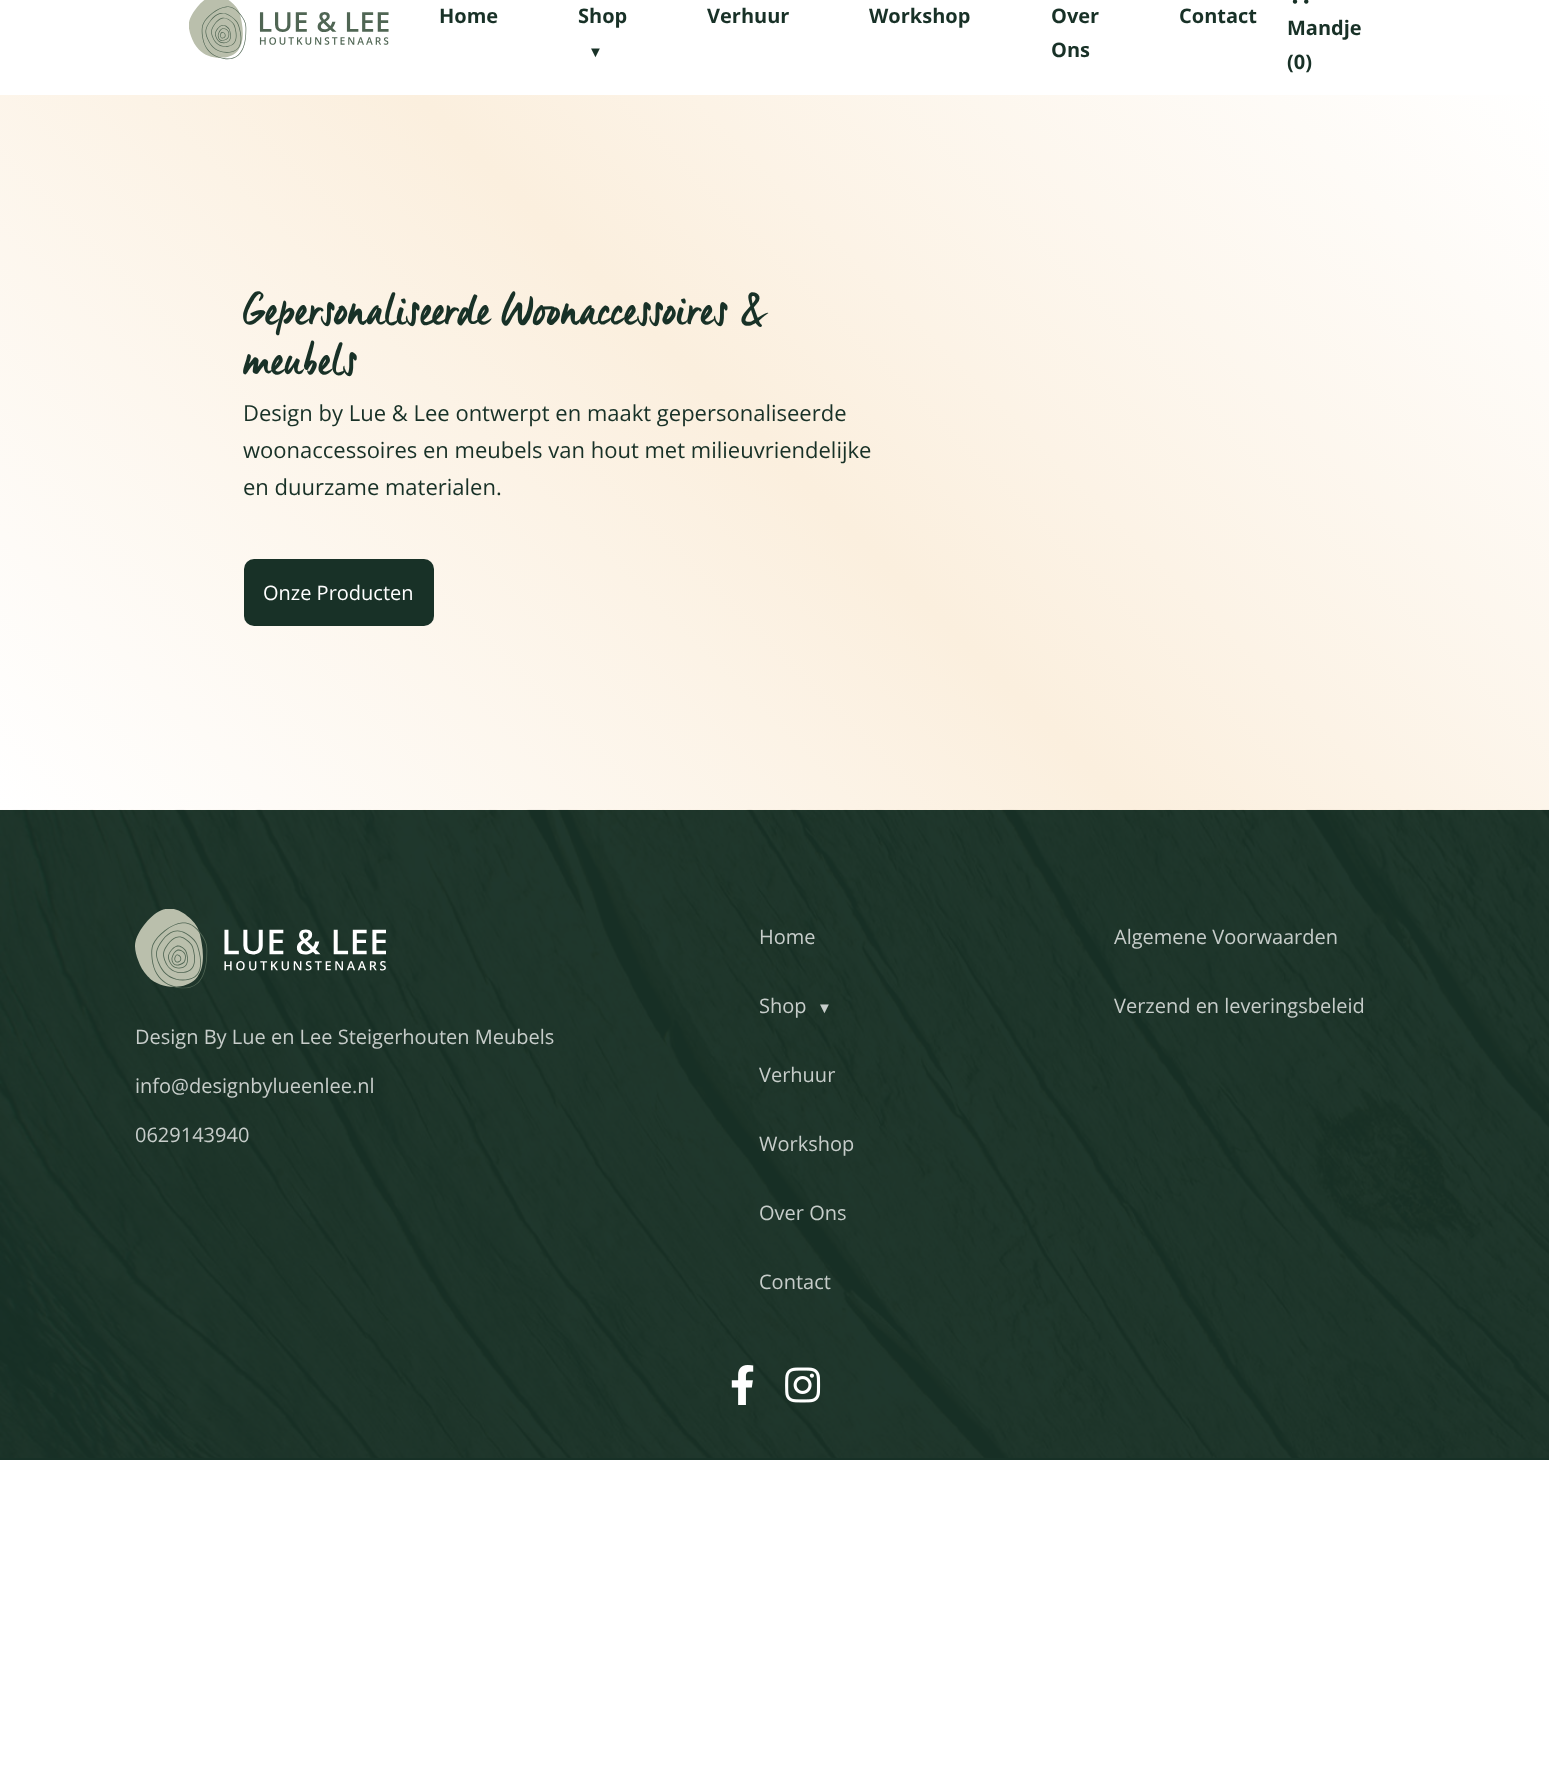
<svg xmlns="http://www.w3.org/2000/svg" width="1549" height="1771">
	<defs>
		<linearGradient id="g1" gradientUnits="userSpaceOnUse" x1="209" y1="1019" x2="1341" y2="-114"><stop offset="0" stop-color="#FFFFFF" /><stop offset="0.5" stop-color="#FBEFDE" /><stop offset="1" stop-color="#FFFFFF" /></linearGradient>
	</defs>
	<rect width="100%" height="100%" fill="#FFFFFF" />
	<image x="189" y="0" width="200" height="60" href="assets/img1.png" />
	<g font-family="Open Sans" font-size="20" font-weight="700" fill="#183127">
		<text x="439" y="23">Home</text>
		<text x="578" y="23">Shop</text>
	</g>
	<text x="588" y="57" font-family="Liberation Sans" font-size="15" font-weight="700" fill="#183127">▼</text>
	<g font-family="Open Sans" font-size="20" font-weight="700" fill="#183127">
		<text x="707" y="23">Verhuur</text>
		<text x="869" y="23">Workshop</text>
		<text x="1051" y="23">Over</text>
		<text x="1051" y="57">Ons</text>
		<text x="1179" y="23">Contact</text>
	</g>
	<image x="1292" y="0" width="17" height="4" href="assets/img2.png" />
	<g font-family="Open Sans" font-size="20" font-weight="700" fill="#183127">
		<text x="1287" y="35">Mandje</text>
		<text x="1287" y="69">(0)</text>
	</g>
	<rect x="0" y="95" width="1549" height="715" fill="url(#g1)" />
	<g font-family="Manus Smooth" font-size="45" fill="#183127">
		<text x="243" y="324">Gepersonaliseerde Woonaccessoires &amp;</text>
		<text x="243" y="374">meubels</text>
	</g>
	<g font-family="Open Sans" font-size="22" fill="#183127">
		<text x="243" y="421">Design by Lue &amp; Lee ontwerpt en maakt gepersonaliseerde</text>
		<text x="243" y="458">woonaccessoires en meubels van hout met milieuvriendelijke</text>
		<text x="243" y="495">en duurzame materialen.</text>
	</g>
	<rect x="244" y="559" width="190" height="67" rx="10" fill="#183127" />
	<text x="263" y="600" font-family="Open Sans" font-size="20" fill="#FFFFFF">Onze Producten</text>
	<rect x="0" y="810" width="1549" height="650" fill="#183127" />
	<image x="0" y="809" width="1549" height="649" href="assets/img3.png" />
	<image x="135" y="909" width="251" height="80" href="assets/img4.png" />
	<g font-family="Open Sans" font-size="20" fill="#C7CDCA">
		<text x="135" y="1044">Design By Lue en Lee Steigerhouten Meubels</text>
		<text x="135" y="1093">info@designbylueenlee.nl</text>
		<text x="135" y="1142">0629143940</text>
		<text x="759" y="944">Home</text>
		<text x="759" y="1013">Shop</text>
	</g>
	<text x="817" y="1013" font-family="Liberation Sans" font-size="15" fill="#C7CDCA">▼</text>
	<g font-family="Open Sans" font-size="20" fill="#C7CDCA">
		<text x="759" y="1082">Verhuur</text>
		<text x="759" y="1151">Workshop</text>
		<text x="759" y="1220">Over Ons</text>
		<text x="759" y="1289">Contact</text>
		<text x="1114" y="944">Algemene Voorwaarden</text>
		<text x="1114" y="1013">Verzend en leveringsbeleid</text>
	</g>
	<image x="731" y="1365" width="23" height="40" href="assets/img5.png" />
	<image x="785" y="1367" width="36" height="36" href="assets/img6.png" />
</svg>
